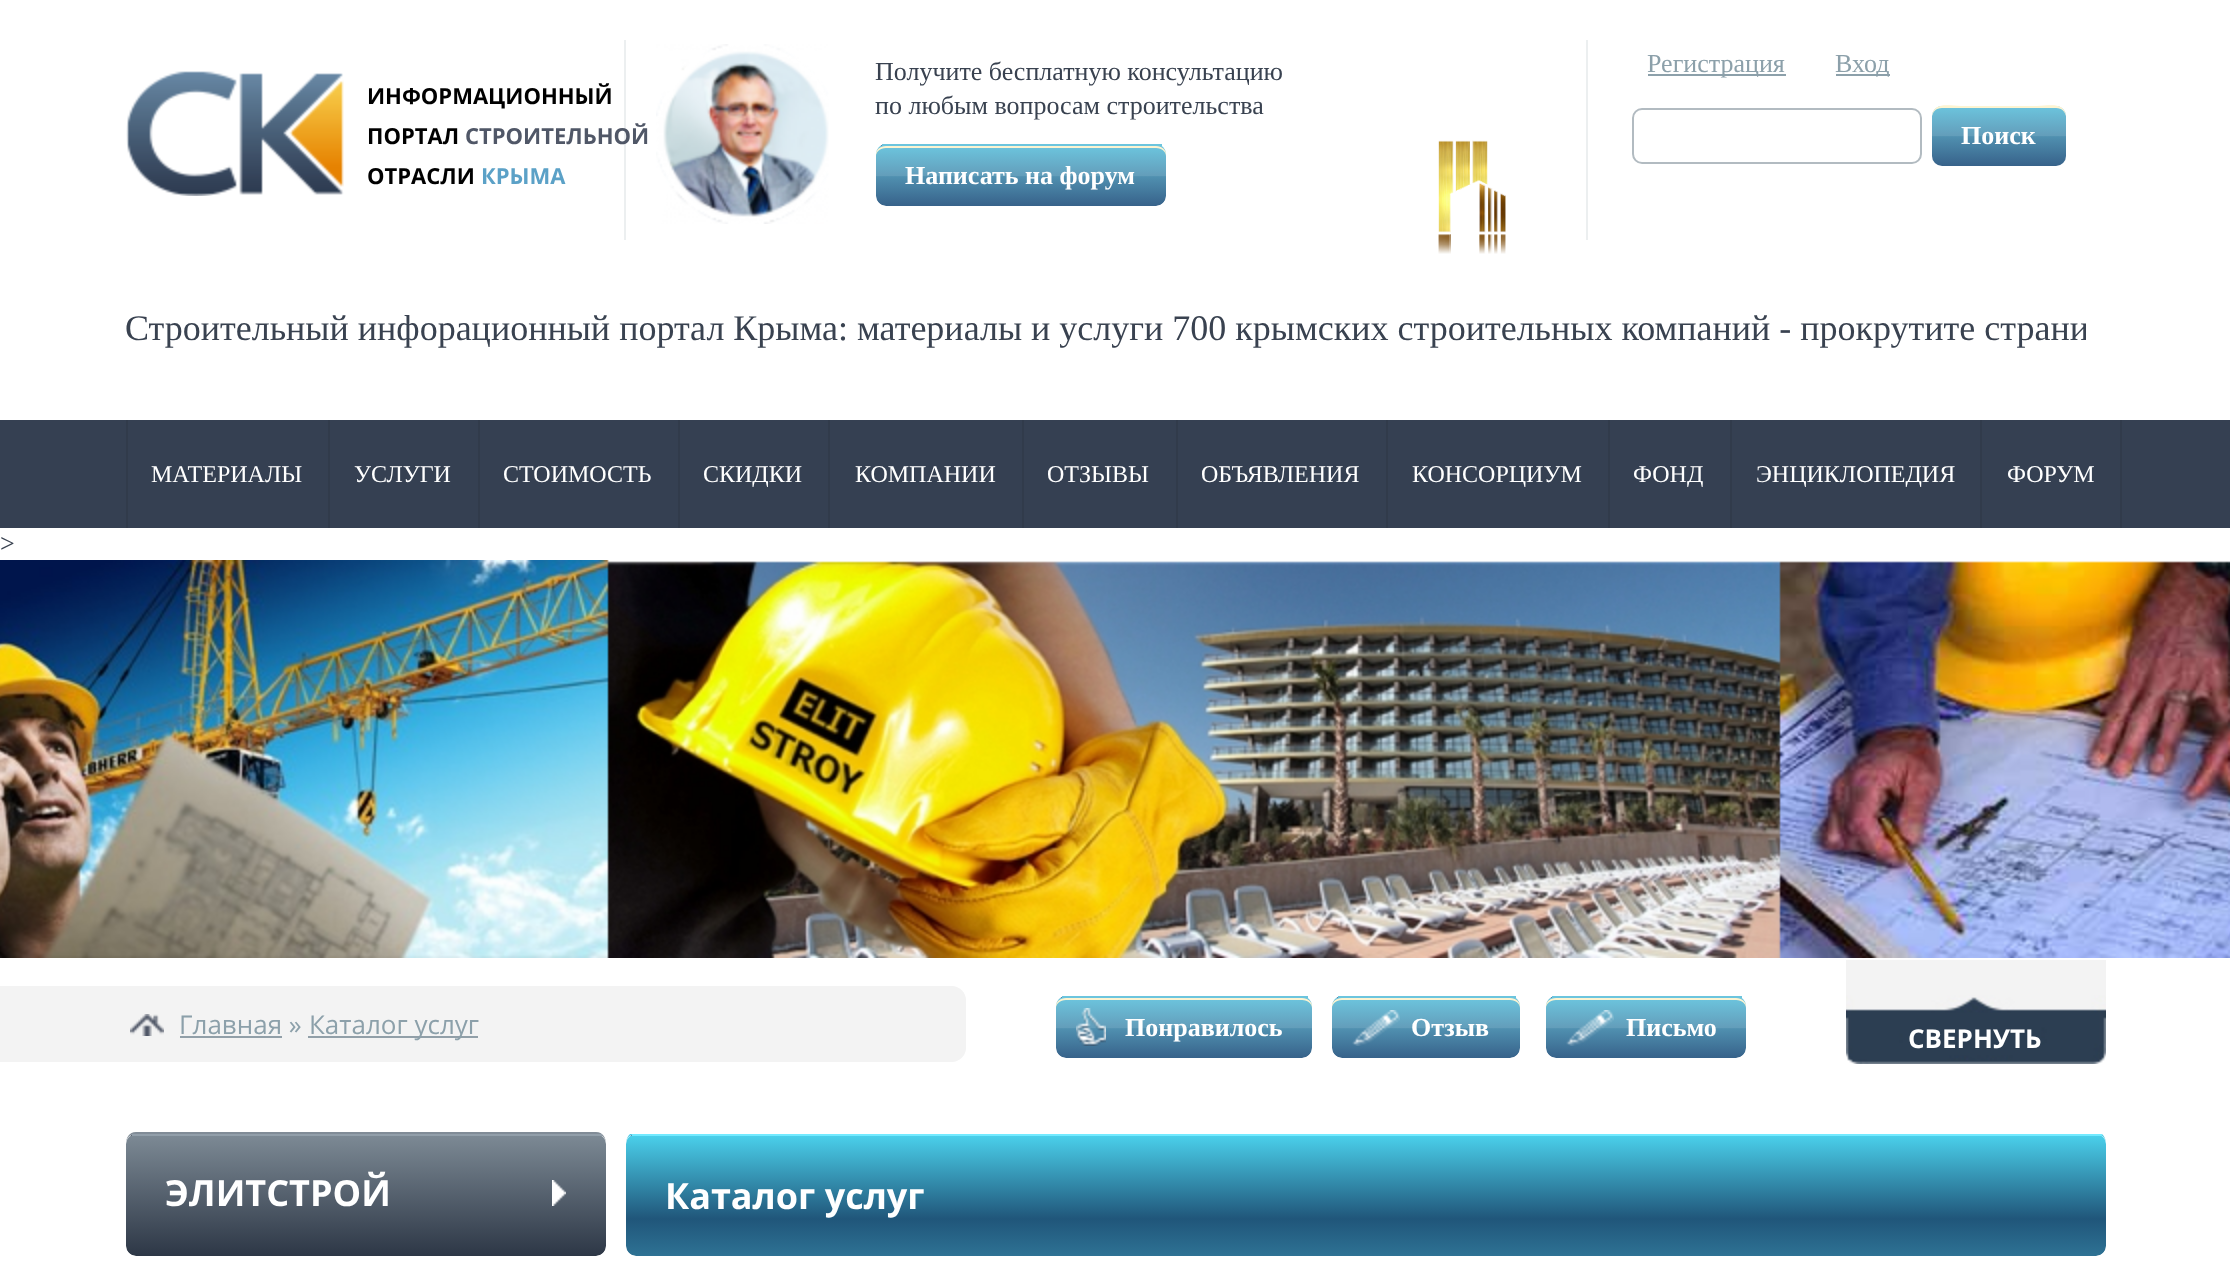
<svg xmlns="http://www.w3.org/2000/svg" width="2230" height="1282">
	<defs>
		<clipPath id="clip1"><rect x="876" y="144" width="290" height="62" rx="10" /></clipPath>
		<linearGradient id="g1" gradientUnits="userSpaceOnUse" x1="1021" y1="86" x2="1021" y2="146"><stop offset="0" stop-color="#6CC5DE" /><stop offset="0.5" stop-color="#639DBA" /><stop offset="0.51" stop-color="#5090B0" /><stop offset="1" stop-color="#37628A" /></linearGradient>
		<linearGradient id="g2" gradientUnits="userSpaceOnUse" x1="1021" y1="146" x2="1021" y2="206"><stop offset="0" stop-color="#6CC5DE" /><stop offset="0.5" stop-color="#639DBA" /><stop offset="0.51" stop-color="#5090B0" /><stop offset="1" stop-color="#37628A" /></linearGradient>
		<linearGradient id="g3" gradientUnits="userSpaceOnUse" x1="1999" y1="106" x2="1999" y2="166"><stop offset="0" stop-color="#6CC5DE" /><stop offset="0.5" stop-color="#639DBA" /><stop offset="0.51" stop-color="#5090B0" /><stop offset="1" stop-color="#37628A" /></linearGradient>
		<clipPath id="clip2"><rect x="126" y="286" width="1960" height="84" /></clipPath>
		<clipPath id="clip3"><rect x="1056" y="996" width="256" height="62" rx="10" /></clipPath>
		<linearGradient id="g4" gradientUnits="userSpaceOnUse" x1="1184" y1="938" x2="1184" y2="998"><stop offset="0" stop-color="#6CC5DE" /><stop offset="0.5" stop-color="#639DBA" /><stop offset="0.51" stop-color="#5090B0" /><stop offset="1" stop-color="#37628A" /></linearGradient>
		<linearGradient id="g5" gradientUnits="userSpaceOnUse" x1="1184" y1="998" x2="1184" y2="1058"><stop offset="0" stop-color="#6CC5DE" /><stop offset="0.5" stop-color="#639DBA" /><stop offset="0.51" stop-color="#5090B0" /><stop offset="1" stop-color="#37628A" /></linearGradient>
		<clipPath id="clip4"><rect x="1332" y="996" width="188" height="62" rx="10" /></clipPath>
		<linearGradient id="g6" gradientUnits="userSpaceOnUse" x1="1426" y1="938" x2="1426" y2="998"><stop offset="0" stop-color="#6CC5DE" /><stop offset="0.5" stop-color="#639DBA" /><stop offset="0.51" stop-color="#5090B0" /><stop offset="1" stop-color="#37628A" /></linearGradient>
		<linearGradient id="g7" gradientUnits="userSpaceOnUse" x1="1426" y1="998" x2="1426" y2="1058"><stop offset="0" stop-color="#6CC5DE" /><stop offset="0.5" stop-color="#639DBA" /><stop offset="0.51" stop-color="#5090B0" /><stop offset="1" stop-color="#37628A" /></linearGradient>
		<clipPath id="clip5"><rect x="1546" y="996" width="200" height="62" rx="10" /></clipPath>
		<linearGradient id="g8" gradientUnits="userSpaceOnUse" x1="1646" y1="938" x2="1646" y2="998"><stop offset="0" stop-color="#6CC5DE" /><stop offset="0.5" stop-color="#639DBA" /><stop offset="0.51" stop-color="#5090B0" /><stop offset="1" stop-color="#37628A" /></linearGradient>
		<linearGradient id="g9" gradientUnits="userSpaceOnUse" x1="1646" y1="998" x2="1646" y2="1058"><stop offset="0" stop-color="#6CC5DE" /><stop offset="0.5" stop-color="#639DBA" /><stop offset="0.51" stop-color="#5090B0" /><stop offset="1" stop-color="#37628A" /></linearGradient>
		<clipPath id="clip6"><rect x="126" y="1134" width="480" height="122" rx="10" /></clipPath>
		<linearGradient id="g10" gradientUnits="userSpaceOnUse" x1="366" y1="1016" x2="366" y2="1136"><stop offset="0" stop-color="#7C8994" /><stop offset="1" stop-color="#2D3746" /></linearGradient>
		<linearGradient id="g11" gradientUnits="userSpaceOnUse" x1="366" y1="1136" x2="366" y2="1256"><stop offset="0" stop-color="#7C8994" /><stop offset="1" stop-color="#2D3746" /></linearGradient>
		<clipPath id="clip7"><rect x="626" y="1134" width="1480" height="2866" /></clipPath>
		<clipPath id="clip8"><rect x="626" y="1134" width="1480" height="122" rx="10" /></clipPath>
		<linearGradient id="g12" gradientUnits="userSpaceOnUse" x1="1366" y1="1016" x2="1366" y2="1136"><stop offset="0" stop-color="#4ACFEA" /><stop offset="0.69" stop-color="#20567A" /><stop offset="1" stop-color="#2E7294" /></linearGradient>
		<linearGradient id="g13" gradientUnits="userSpaceOnUse" x1="1366" y1="1136" x2="1366" y2="1256"><stop offset="0" stop-color="#4ACFEA" /><stop offset="0.69" stop-color="#20567A" /><stop offset="1" stop-color="#2E7294" /></linearGradient>
	</defs>
	<rect width="100%" height="100%" fill="#FFFFFF" />
	<image x="126" y="71" width="218" height="125" href="assets/img1.png" />
	<g font-family="Open Sans" font-size="22" font-weight="700" fill="#000000">
		<text x="367" y="104">ИНФОРМАЦИОННЫЙ</text>
		<text x="367" y="144">ПОРТАЛ</text>
	</g>
	<rect x="624" y="40" width="2" height="200" fill="#ECEFF0" />
	<text x="465" y="144" font-family="Open Sans" font-size="22" font-weight="700" fill="#505767">СТРОИТЕЛЬНОЙ</text>
	<text x="367" y="184" font-family="Open Sans" font-size="22" font-weight="700" fill="#000000">ОТРАСЛИ</text>
	<text x="481" y="184" font-family="Open Sans" font-size="22" font-weight="700" fill="#5BA1C7">КРЫМА</text>
	<image x="656" y="44" width="173" height="180" href="assets/img2.png" />
	<g font-family="Liberation Serif" font-size="26" fill="#394250">
		<text x="875" y="80">Получите бесплатную консультацию</text>
		<text x="875" y="114">по любым вопросам строительства</text>
	</g>
	<g clip-path="url(#clip1)">
		<rect x="876" y="144" width="6" height="2" fill="url(#g1)" />
		<path d="M876 146H1166V196C1166 201.5 1161.5 206 1156 206H886C880.5 206 876 201.5 876 196Z" fill="url(#g2)" />
	</g>
	<path d="M886 148H1156C1162 148 1166 152 1166 156V154C1166 150 1162 146 1156 146H886C880 146 876 150 876 154V156C876 152 880 148 886 148Z" fill="#FDF4D1" />
	<rect x="882" y="144" width="280" height="2" fill="#6CC5DE" />
	<text x="905" y="184" font-family="Liberation Serif" font-size="26" font-weight="700" fill="#FFFFFF">Написать на форум</text>
	<image x="1438" y="140" width="68" height="114" href="assets/img3.png" />
	<rect x="1586" y="40" width="2" height="200" fill="#ECEFF0" />
	<rect x="1648" y="74" width="138" height="2" fill="#8CA0AA" />
	<text x="1647" y="72" font-family="Liberation Serif" font-size="26" fill="#8CA0AA">Регистрация</text>
	<rect x="1836" y="74" width="54" height="2" fill="#8CA0AA" />
	<text x="1835" y="72" font-family="Liberation Serif" font-size="26" fill="#8CA0AA">Вход</text>
	<rect x="1633" y="109" width="288" height="54" rx="9" fill="none" stroke="#B2BBC1" stroke-width="2" />
	<rect x="1932" y="106" width="134" height="60" rx="10" fill="url(#g3)" />
	<path d="M1942 108H2056C2062 108 2066 112 2066 118C2066 101 2049 106 2037 106H1961C1949 106 1932 101 1932 118C1932 112 1936 108 1942 108Z" fill="#FDF4D1" />
	<text x="1961" y="144" font-family="Liberation Serif" font-size="26" font-weight="700" fill="#FFFFFF">Поиск</text>
	<g clip-path="url(#clip2)">
		<text x="125" y="340" font-family="Liberation Serif" font-size="36" fill="#394250">Строительный инфорационный портал Крыма: материалы и услуги 700 крымских строительных компаний - прокрутите страни</text>
	</g>
	<rect x="0" y="420" width="2230" height="108" fill="#354052" />
	<rect x="126" y="420" width="2" height="108" fill="#313B4B" />
	<text x="151" y="482" font-family="Liberation Serif" font-size="24" fill="#FFFFFF">МАТЕРИАЛЫ</text>
	<rect x="328" y="420" width="2" height="108" fill="#313B4B" />
	<text x="354" y="482" font-family="Liberation Serif" font-size="24" fill="#FFFFFF">УСЛУГИ</text>
	<rect x="478" y="420" width="2" height="108" fill="#313B4B" />
	<text x="503" y="482" font-family="Liberation Serif" font-size="24" fill="#FFFFFF">СТОИМОСТЬ</text>
	<rect x="678" y="420" width="2" height="108" fill="#313B4B" />
	<text x="703" y="482" font-family="Liberation Serif" font-size="24" fill="#FFFFFF">СКИДКИ</text>
	<rect x="828" y="420" width="2" height="108" fill="#313B4B" />
	<text x="855" y="482" font-family="Liberation Serif" font-size="24" fill="#FFFFFF">КОМПАНИИ</text>
	<rect x="1022" y="420" width="2" height="108" fill="#313B4B" />
	<text x="1047" y="482" font-family="Liberation Serif" font-size="24" fill="#FFFFFF">ОТЗЫВЫ</text>
	<rect x="1176" y="420" width="2" height="108" fill="#313B4B" />
	<text x="1201" y="482" font-family="Liberation Serif" font-size="24" fill="#FFFFFF">ОБЪЯВЛЕНИЯ</text>
	<rect x="1386" y="420" width="2" height="108" fill="#313B4B" />
	<text x="1412" y="482" font-family="Liberation Serif" font-size="24" fill="#FFFFFF">КОНСОРЦИУМ</text>
	<rect x="1608" y="420" width="2" height="108" fill="#313B4B" />
	<text x="1633" y="482" font-family="Liberation Serif" font-size="24" fill="#FFFFFF">ФОНД</text>
	<rect x="1730" y="420" width="2" height="108" fill="#313B4B" />
	<text x="1756" y="482" font-family="Liberation Serif" font-size="24" fill="#FFFFFF">ЭНЦИКЛОПЕДИЯ</text>
	<rect x="1980" y="420" width="2" height="108" fill="#313B4B" />
	<rect x="2120" y="420" width="2" height="108" fill="#313B4B" />
	<text x="2007" y="482" font-family="Liberation Serif" font-size="24" fill="#FFFFFF">ФОРУМ</text>
	<text x="0" y="552" font-family="Liberation Serif" font-size="26" fill="#394250">&gt;</text>
	<image x="0" y="560" width="2230" height="398" href="assets/img4.png" />
	<image x="1846" y="960" width="260" height="104" href="assets/img5.png" />
	<text x="1908" y="1048" font-family="Open Sans" font-size="26" font-weight="700" fill="#FFFFFF">СВЕРНУТЬ</text>
	<path d="M0 986H952C959.5 986 966 992.5 966 1000V1048C966 1055.5 959.5 1062 952 1062H0Z" fill="#F3F3F3" />
	<image x="130" y="1014" width="34" height="22" href="assets/img6.png" />
	<text x="179" y="1034" font-family="Open Sans" font-size="26" fill="#8CA0AA">Главная »</text>
	<rect x="180" y="1036" width="102" height="2" fill="#919FA8" />
	<rect x="308" y="1036" width="170" height="2" fill="#919FA8" />
	<text x="309" y="1034" font-family="Open Sans" font-size="26" fill="#8CA0AA">Каталог услуг</text>
	<g clip-path="url(#clip3)">
		<rect x="1056" y="996" width="6" height="2" fill="url(#g4)" />
		<path d="M1056 998H1312V1048C1312 1053.5 1307.5 1058 1302 1058H1066C1060.5 1058 1056 1053.5 1056 1048Z" fill="url(#g5)" />
	</g>
	<path d="M1066 1000H1302C1308 1000 1312 1004 1312 1008V1006C1312 1002 1308 998 1302 998H1066C1060 998 1056 1002 1056 1006V1008C1056 1004 1060 1000 1066 1000Z" fill="#FDF4D1" />
	<rect x="1062" y="996" width="246" height="2" fill="#6CC5DE" />
	<image x="1076" y="1008" width="30" height="38" href="assets/img7.png" />
	<text x="1125" y="1036" font-family="Liberation Serif" font-size="26" font-weight="700" fill="#FFFFFF">Понравилось</text>
	<g clip-path="url(#clip4)">
		<rect x="1332" y="996" width="6" height="2" fill="url(#g6)" />
		<path d="M1332 998H1520V1048C1520 1053.5 1515.5 1058 1510 1058H1342C1336.5 1058 1332 1053.5 1332 1048Z" fill="url(#g7)" />
	</g>
	<path d="M1342 1000H1510C1516 1000 1520 1004 1520 1008V1006C1520 1002 1516 998 1510 998H1342C1336 998 1332 1002 1332 1006V1008C1332 1004 1336 1000 1342 1000Z" fill="#FDF4D1" />
	<rect x="1338" y="996" width="178" height="2" fill="#6CC5DE" />
	<image x="1352" y="1010" width="48" height="36" href="assets/img8.png" />
	<text x="1411" y="1036" font-family="Liberation Serif" font-size="26" font-weight="700" fill="#FFFFFF">Отзыв</text>
	<g clip-path="url(#clip5)">
		<rect x="1546" y="996" width="6" height="2" fill="url(#g8)" />
		<path d="M1546 998H1746V1048C1746 1053.5 1741.5 1058 1736 1058H1556C1550.5 1058 1546 1053.5 1546 1048Z" fill="url(#g9)" />
	</g>
	<path d="M1556 1000H1736C1742 1000 1746 1004 1746 1008V1006C1746 1002 1742 998 1736 998H1556C1550 998 1546 1002 1546 1006V1008C1546 1004 1550 1000 1556 1000Z" fill="#FDF4D1" />
	<rect x="1552" y="996" width="190" height="2" fill="#6CC5DE" />
	<image x="1566" y="1010" width="48" height="36" href="assets/img8.png" />
	<text x="1626" y="1036" font-family="Liberation Serif" font-size="26" font-weight="700" fill="#FFFFFF">Письмо</text>
	<path d="M136 1132C129 1132 126 1138 126 1144C126 1138 130 1134 136 1134H596C602 1134 606 1138 606 1144C606 1138 603 1132 596 1132Z" fill="#818C97" />
	<g clip-path="url(#clip6)">
		<rect x="126" y="1134" width="6" height="2" fill="url(#g10)" />
		<path d="M126 1136H606V1246C606 1251.5 601.5 1256 596 1256H136C130.5 1256 126 1251.5 126 1246Z" fill="url(#g11)" />
	</g>
	<rect x="132" y="1134" width="470" height="2" fill="#929FAA" />
	<text x="165" y="1206" font-family="Open Sans" font-size="36" font-weight="700" fill="#FFFFFF">ЭЛИТСТРОЙ</text>
	<image x="552" y="1180" width="14" height="26" href="assets/img9.png" />
	<g clip-path="url(#clip7)">
		<path d="M636 1132C629 1132 626 1138 626 1144C626 1138 630 1134 636 1134H2096C2102 1134 2106 1138 2106 1144C2106 1138 2103 1132 2096 1132Z" fill="#4CC9E5" />
	</g>
	<g clip-path="url(#clip8)">
		<rect x="626" y="1134" width="6" height="2" fill="url(#g12)" />
		<path d="M626 1136H2106V1246C2106 1251.5 2101.5 1256 2096 1256H636C630.5 1256 626 1251.5 626 1246Z" fill="url(#g13)" />
	</g>
	<rect x="632" y="1134" width="1470" height="2" fill="#73EAFF" />
	<text x="665" y="1209" font-family="Open Sans" font-size="36" font-weight="700" fill="#FFFFFF">Каталог услуг</text>
</svg>
